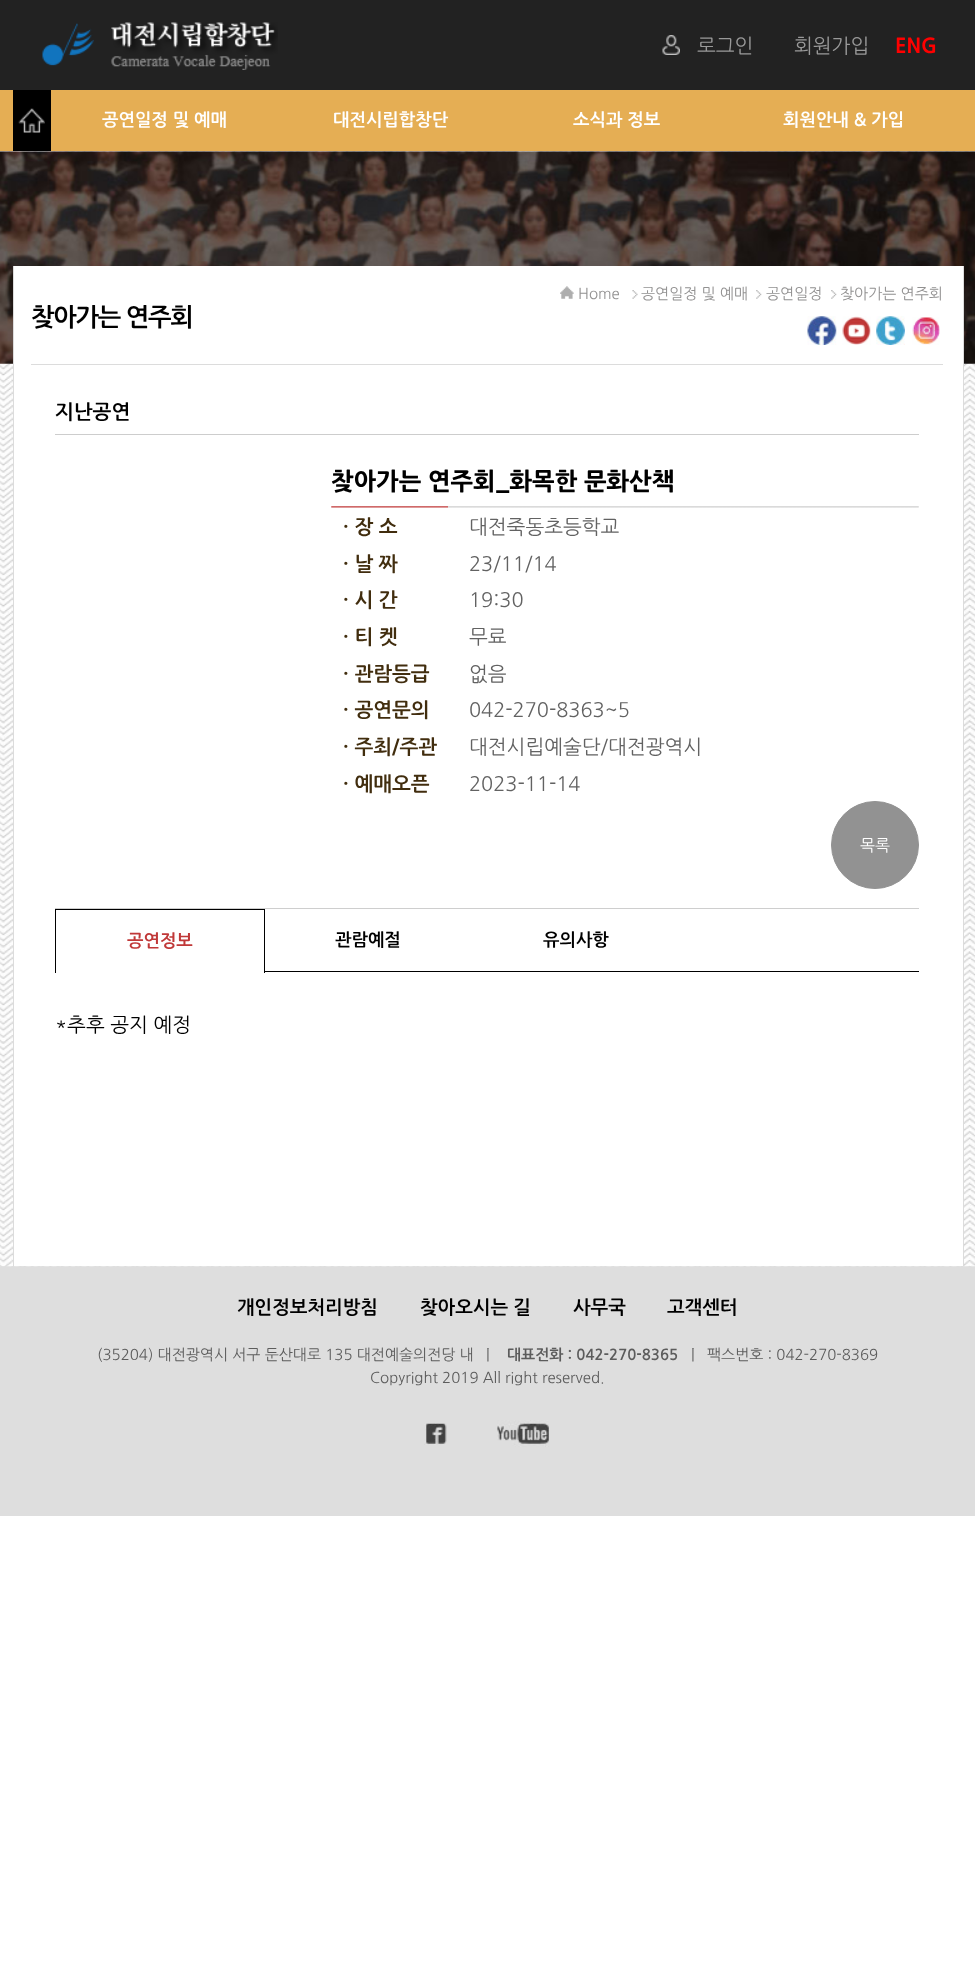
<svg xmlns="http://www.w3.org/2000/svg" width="975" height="1967">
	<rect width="100%" height="100%" fill="#FFFFFF" />
	<rect x="0" y="0" width="975" height="90" fill="#222222" />
	<image x="42" y="22" width="236" height="48" href="assets/img1.png" />
	<image x="662" y="35" width="18" height="20" href="assets/img2.png" />
	<g font-family="NanumGothic" font-size="20" fill="#999999">
		<text x="697" y="53">로그인</text>
		<text x="794" y="53">회원가입</text>
	</g>
	<text x="895" y="53" font-family="NanumGothic" font-size="20" font-weight="800" fill="#FF0000">ENG</text>
	<rect x="0" y="90" width="975" height="61" fill="#E5AE54" />
	<rect x="13" y="90" width="38" height="61" fill="#000000" />
	<image x="18" y="108" width="27" height="25" href="assets/img3.png" />
	<g font-family="NanumGothic" font-size="17.5" font-weight="700" fill="#FFFFFF">
		<text x="102" y="126">공연일정 및 예매</text>
		<text x="333" y="126">대전시립합창단</text>
		<text x="573" y="126">소식과 정보</text>
		<text x="783" y="126">회원안내 &amp; 가입</text>
	</g>
	<rect x="0" y="1266" width="975" height="250" fill="#DEDEDE" />
	<image x="0" y="151" width="975" height="1116" href="assets/img4.png" />
	<image x="0" y="151" width="975" height="213" href="assets/img5.png" />
	<rect x="14" y="266" width="949" height="1000" fill="#FFFFFF" />
	<rect x="963" y="266" width="1" height="1000" fill="#DCDCDC" />
	<rect x="13" y="266" width="1" height="1000" fill="#DCDCDC" />
	<rect x="31" y="364" width="912" height="1" fill="#DCDCDC" />
	<image x="560" y="286" width="14" height="13" href="assets/img6.png" />
	<text x="578" y="299" font-family="NanumGothic" font-size="15" fill="#929191">Home</text>
	<image x="632" y="290" width="6" height="9" href="assets/img7.png" />
	<text x="641" y="299" font-family="NanumGothic" font-size="15" fill="#929191">공연일정 및 예매</text>
	<image x="756" y="290" width="6" height="9" href="assets/img8.png" />
	<text x="766" y="299" font-family="NanumGothic" font-size="15" fill="#929191">공연일정</text>
	<image x="831" y="290" width="6" height="9" href="assets/img8.png" />
	<text x="840" y="299" font-family="NanumGothic" font-size="15" fill="#929191">찾아가는 연주회</text>
	<text x="31" y="326" font-family="NanumGothic" font-size="25" font-weight="700" letter-spacing="-1.25" fill="#000000">찾아가는 연주회</text>
	<image x="807" y="316" width="30" height="29" href="assets/img9.png" />
	<image x="842" y="316" width="29" height="29" href="assets/img10.png" />
	<image x="876" y="316" width="29" height="29" href="assets/img11.png" />
	<image x="912" y="317" width="28" height="28" href="assets/img12.png" />
	<text x="55" y="419" font-family="NanumGothic" font-size="20" font-weight="700" fill="#000000">지난공연</text>
	<rect x="55" y="434" width="864" height="1" fill="#CDCDCD" />
	<rect x="55" y="908" width="864" height="1" fill="#CECECE" />
	<image x="331" y="506" width="588" height="2" href="assets/img13.png" />
	<text x="331" y="490" font-family="NanumGothic" font-size="24" font-weight="800" fill="#000000">찾아가는 연주회_화목한 문화산책</text>
	<text x="343" y="534" font-family="NanumGothic" font-size="20" font-weight="700" fill="#412D0E">· 장 소</text>
	<text x="469" y="534" font-family="NanumGothic" font-size="20" fill="#626262">대전죽동초등학교</text>
	<text x="343" y="571" font-family="NanumGothic" font-size="20" font-weight="700" fill="#412D0E">· 날 짜</text>
	<text x="469" y="571" font-family="NanumGothic" font-size="20" fill="#626262">23/11/14</text>
	<text x="343" y="607" font-family="NanumGothic" font-size="20" font-weight="700" fill="#412D0E">· 시 간</text>
	<text x="469" y="607" font-family="NanumGothic" font-size="20" fill="#626262">19:30</text>
	<text x="343" y="644" font-family="NanumGothic" font-size="20" font-weight="700" fill="#412D0E">· 티 켓</text>
	<text x="469" y="644" font-family="NanumGothic" font-size="20" fill="#626262">무료</text>
	<text x="343" y="681" font-family="NanumGothic" font-size="20" font-weight="700" fill="#412D0E">· 관람등급</text>
	<text x="469" y="681" font-family="NanumGothic" font-size="20" fill="#626262">없음</text>
	<text x="343" y="717" font-family="NanumGothic" font-size="20" font-weight="700" fill="#412D0E">· 공연문의</text>
	<text x="469" y="717" font-family="NanumGothic" font-size="20" fill="#626262">042-270-8363~5</text>
	<text x="343" y="754" font-family="NanumGothic" font-size="20" font-weight="700" fill="#412D0E">· 주최/주관</text>
	<text x="469" y="754" font-family="NanumGothic" font-size="20" fill="#626262">대전시립예술단/대전광역시</text>
	<text x="343" y="791" font-family="NanumGothic" font-size="20" font-weight="700" fill="#412D0E">· 예매오픈</text>
	<text x="469" y="791" font-family="NanumGothic" font-size="20" fill="#626262">2023-11-14</text>
	<circle cx="875" cy="845" r="43.5" fill="#929292" stroke="#929292" />
	<text x="860" y="851" font-family="NanumGothic" font-size="16" fill="#FFFFFF">목록</text>
	<rect x="265" y="971" width="654" height="1" fill="#000000" />
	<rect x="55" y="909" width="210" height="1" fill="#000000" />
	<rect x="264" y="909" width="1" height="64" fill="#000000" />
	<rect x="55" y="909" width="1" height="64" fill="#000000" />
	<text x="127" y="947" font-family="NanumGothic" font-size="17.5" font-weight="700" fill="#C03838">공연정보</text>
	<g font-family="NanumGothic" font-size="17.5" font-weight="700" fill="#000000">
		<text x="335" y="946">관람예절</text>
		<text x="543" y="946">유의사항</text>
	</g>
	<text x="55" y="1032" font-family="NanumGothic" font-size="20" fill="#000000">*추후 공지 예정</text>
	<g font-family="NanumGothic" font-size="18.75" font-weight="700" fill="#000000">
		<text x="237" y="1314">개인정보처리방침</text>
		<text x="420" y="1314">찾아오시는 길</text>
		<text x="573" y="1314">사무국</text>
		<text x="667" y="1314">고객센터</text>
	</g>
	<g font-family="NanumGothic" font-size="15" fill="#5C5C5C">
		<text x="97" y="1360">(35204) 대전광역시 서구 둔산대로 135 대전예술의전당 내</text>
		<text x="486" y="1360">|</text>
	</g>
	<text x="507" y="1360" font-family="NanumGothic" font-size="15" font-weight="700" fill="#5C5C5C">대표전화 : 042-270-8365</text>
	<g font-family="NanumGothic" font-size="15" fill="#5C5C5C">
		<text x="691" y="1360">|</text>
		<text x="707" y="1360">팩스번호 : 042-270-8369</text>
		<text x="370" y="1383">Copyright 2019 All right reserved.</text>
	</g>
	<image x="424" y="1423" width="23" height="22" href="assets/img14.png" />
	<image x="497" y="1420" width="52" height="27" href="assets/img15.png" />
</svg>
